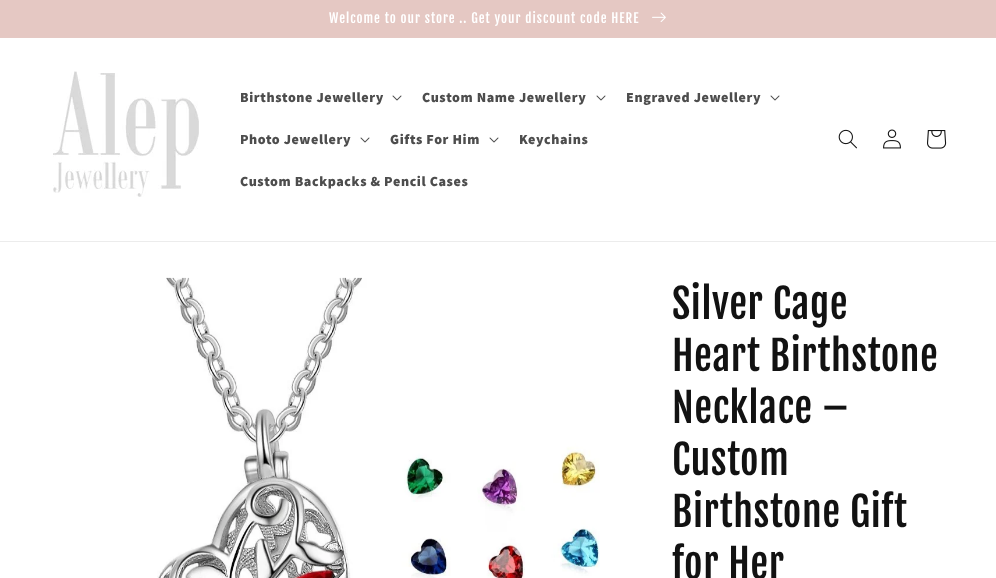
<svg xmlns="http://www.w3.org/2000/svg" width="996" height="578">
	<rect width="100%" height="100%" fill="#FFFFFF" />
	<rect x="0" y="37" width="996" height="1" fill="#E5C9C4" />
	<rect x="0" y="0" width="996" height="37" fill="#E5C8C3" />
	<text x="329" y="23" font-family="Fjalla One" font-size="13" letter-spacing="1" fill="#FFFFFF">Welcome to our store .. Get your discount code HERE</text>
	<image x="652" y="12" width="14" height="10" href="assets/img1.png" />
	<rect x="0" y="241" width="996" height="1" fill="#ECECEC" />
	<image x="53" y="71" width="146" height="126" href="assets/img2.png" />
	<text x="240" y="102" font-family="Assistant" font-size="14" font-weight="800" letter-spacing="0.6" fill="#4D4D4D">Birthstone Jewellery</text>
	<image x="392" y="95" width="10" height="6" href="assets/img3.png" />
	<text x="422" y="102" font-family="Assistant" font-size="14" font-weight="800" letter-spacing="0.6" fill="#4D4D4D">Custom Name Jewellery</text>
	<image x="596" y="95" width="10" height="6" href="assets/img3.png" />
	<text x="626" y="102" font-family="Assistant" font-size="14" font-weight="800" letter-spacing="0.6" fill="#4D4D4D">Engraved Jewellery</text>
	<image x="770" y="95" width="10" height="6" href="assets/img3.png" />
	<text x="240" y="144" font-family="Assistant" font-size="14" font-weight="800" letter-spacing="0.6" fill="#4D4D4D">Photo Jewellery</text>
	<image x="360" y="137" width="10" height="6" href="assets/img3.png" />
	<text x="390" y="144" font-family="Assistant" font-size="14" font-weight="800" letter-spacing="0.6" fill="#4D4D4D">Gifts For Him</text>
	<image x="489" y="137" width="10" height="6" href="assets/img3.png" />
	<g font-family="Assistant" font-size="14" font-weight="800" letter-spacing="0.6" fill="#4D4D4D">
		<text x="519" y="144">Keychains</text>
		<text x="240" y="186">Custom Backpacks &amp; Pencil Cases</text>
	</g>
	<image x="838" y="129" width="19" height="20" href="assets/img4.png" />
	<image x="883" y="129" width="18" height="20" href="assets/img5.png" />
	<image x="927" y="130" width="20" height="19" href="assets/img6.png" />
	<image x="157" y="277" width="443" height="301" href="assets/img7.png" />
	<g font-family="Fjalla One" font-size="40" letter-spacing="0.6" fill="#121212">
		<text x="672" y="319">Silver Cage</text>
		<text x="672" y="371">Heart Birthstone</text>
		<text x="672" y="423">Necklace –</text>
		<text x="672" y="475">Custom</text>
		<text x="672" y="527">Birthstone Gift</text>
		<text x="672" y="579">for Her</text>
	</g>
</svg>
